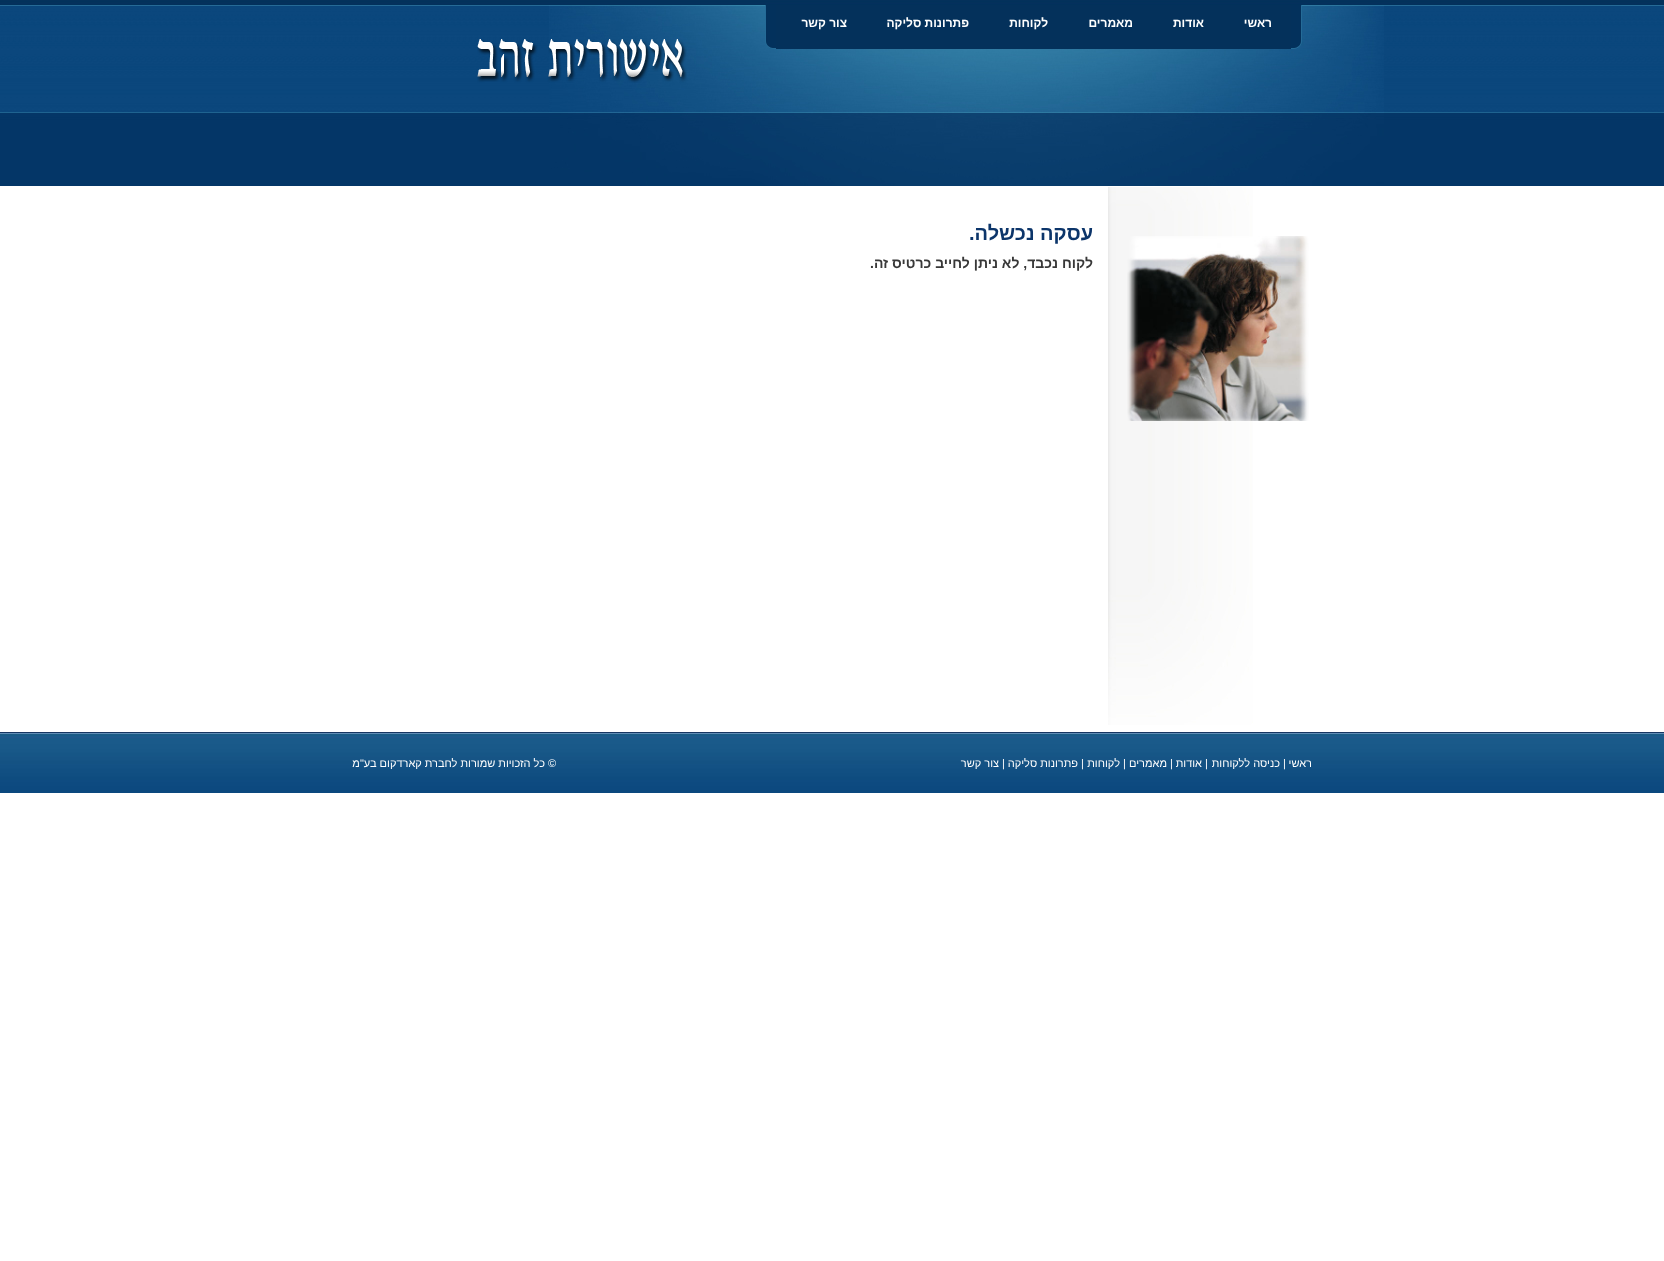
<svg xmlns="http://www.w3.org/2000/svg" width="1664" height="1261">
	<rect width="100%" height="100%" fill="#FFFFFF" />
	<image x="0" y="0" width="1664" height="186" href="assets/img1.png" />
	<image x="549" y="5" width="835" height="181" href="assets/img2.png" />
	<image x="1291" y="5" width="11" height="44" href="assets/img3.png" />
	<rect x="776" y="5" width="515" height="44" fill="#04315B" />
	<g font-family="Liberation Sans" font-size="12" font-weight="700" direction="rtl" fill="#FFFFFF">
		<text x="1272" y="27">ראשי</text>
		<text x="1204" y="27">אודות</text>
		<text x="1133" y="27">מאמרים</text>
		<text x="1048" y="27">לקוחות</text>
		<text x="969" y="27">פתרונות סליקה</text>
		<text x="847" y="27">צור קשר</text>
	</g>
	<image x="765" y="5" width="11" height="44" href="assets/img4.png" />
	<image x="477" y="39" width="210" height="44" href="assets/img5.png" />
	<image x="1108" y="187" width="145" height="538" href="assets/img6.png" />
	<image x="1127" y="236" width="182" height="185" href="assets/img7.png" />
	<text x="1093" y="240" font-family="Liberation Sans" font-size="20" font-weight="700" direction="rtl" fill="#0C356A">עסקה נכשלה.</text>
	<text x="1093" y="268" font-family="Liberation Sans" font-size="14" font-weight="700" direction="rtl" fill="#383838">לקוח נכבד, לא ניתן לחייב כרטיס זה.</text>
	<image x="0" y="732" width="1664" height="61" href="assets/img8.png" />
	<text x="1312" y="767" font-family="Liberation Sans" font-size="11" direction="rtl" fill="#FFFFFF">ראשי</text>
	<text x="1283" y="767" font-family="Liberation Sans" font-size="11" fill="#FFFFFF">|</text>
	<text x="1280" y="767" font-family="Liberation Sans" font-size="11" direction="rtl" fill="#FFFFFF">כניסה ללקוחות</text>
	<text x="1205" y="767" font-family="Liberation Sans" font-size="11" fill="#FFFFFF">|</text>
	<text x="1202" y="767" font-family="Liberation Sans" font-size="11" direction="rtl" fill="#FFFFFF">אודות</text>
	<text x="1170" y="767" font-family="Liberation Sans" font-size="11" fill="#FFFFFF">|</text>
	<text x="1167" y="767" font-family="Liberation Sans" font-size="11" direction="rtl" fill="#FFFFFF">מאמרים</text>
	<text x="1123" y="767" font-family="Liberation Sans" font-size="11" fill="#FFFFFF">|</text>
	<text x="1120" y="767" font-family="Liberation Sans" font-size="11" direction="rtl" fill="#FFFFFF">לקוחות</text>
	<text x="1081" y="767" font-family="Liberation Sans" font-size="11" fill="#FFFFFF">|</text>
	<text x="1078" y="767" font-family="Liberation Sans" font-size="11" direction="rtl" fill="#FFFFFF">פתרונות סליקה</text>
	<text x="1002" y="767" font-family="Liberation Sans" font-size="11" fill="#FFFFFF">|</text>
	<text x="999" y="767" font-family="Liberation Sans" font-size="11" direction="rtl" fill="#FFFFFF">צור קשר</text>
	<text x="548" y="767" font-family="Liberation Sans" font-size="11" fill="#FFFFFF">©</text>
	<text x="545" y="767" font-family="Liberation Sans" font-size="11" direction="rtl" fill="#FFFFFF">כל הזכויות שמורות לחברת קארדקום בע"מ</text>
</svg>
